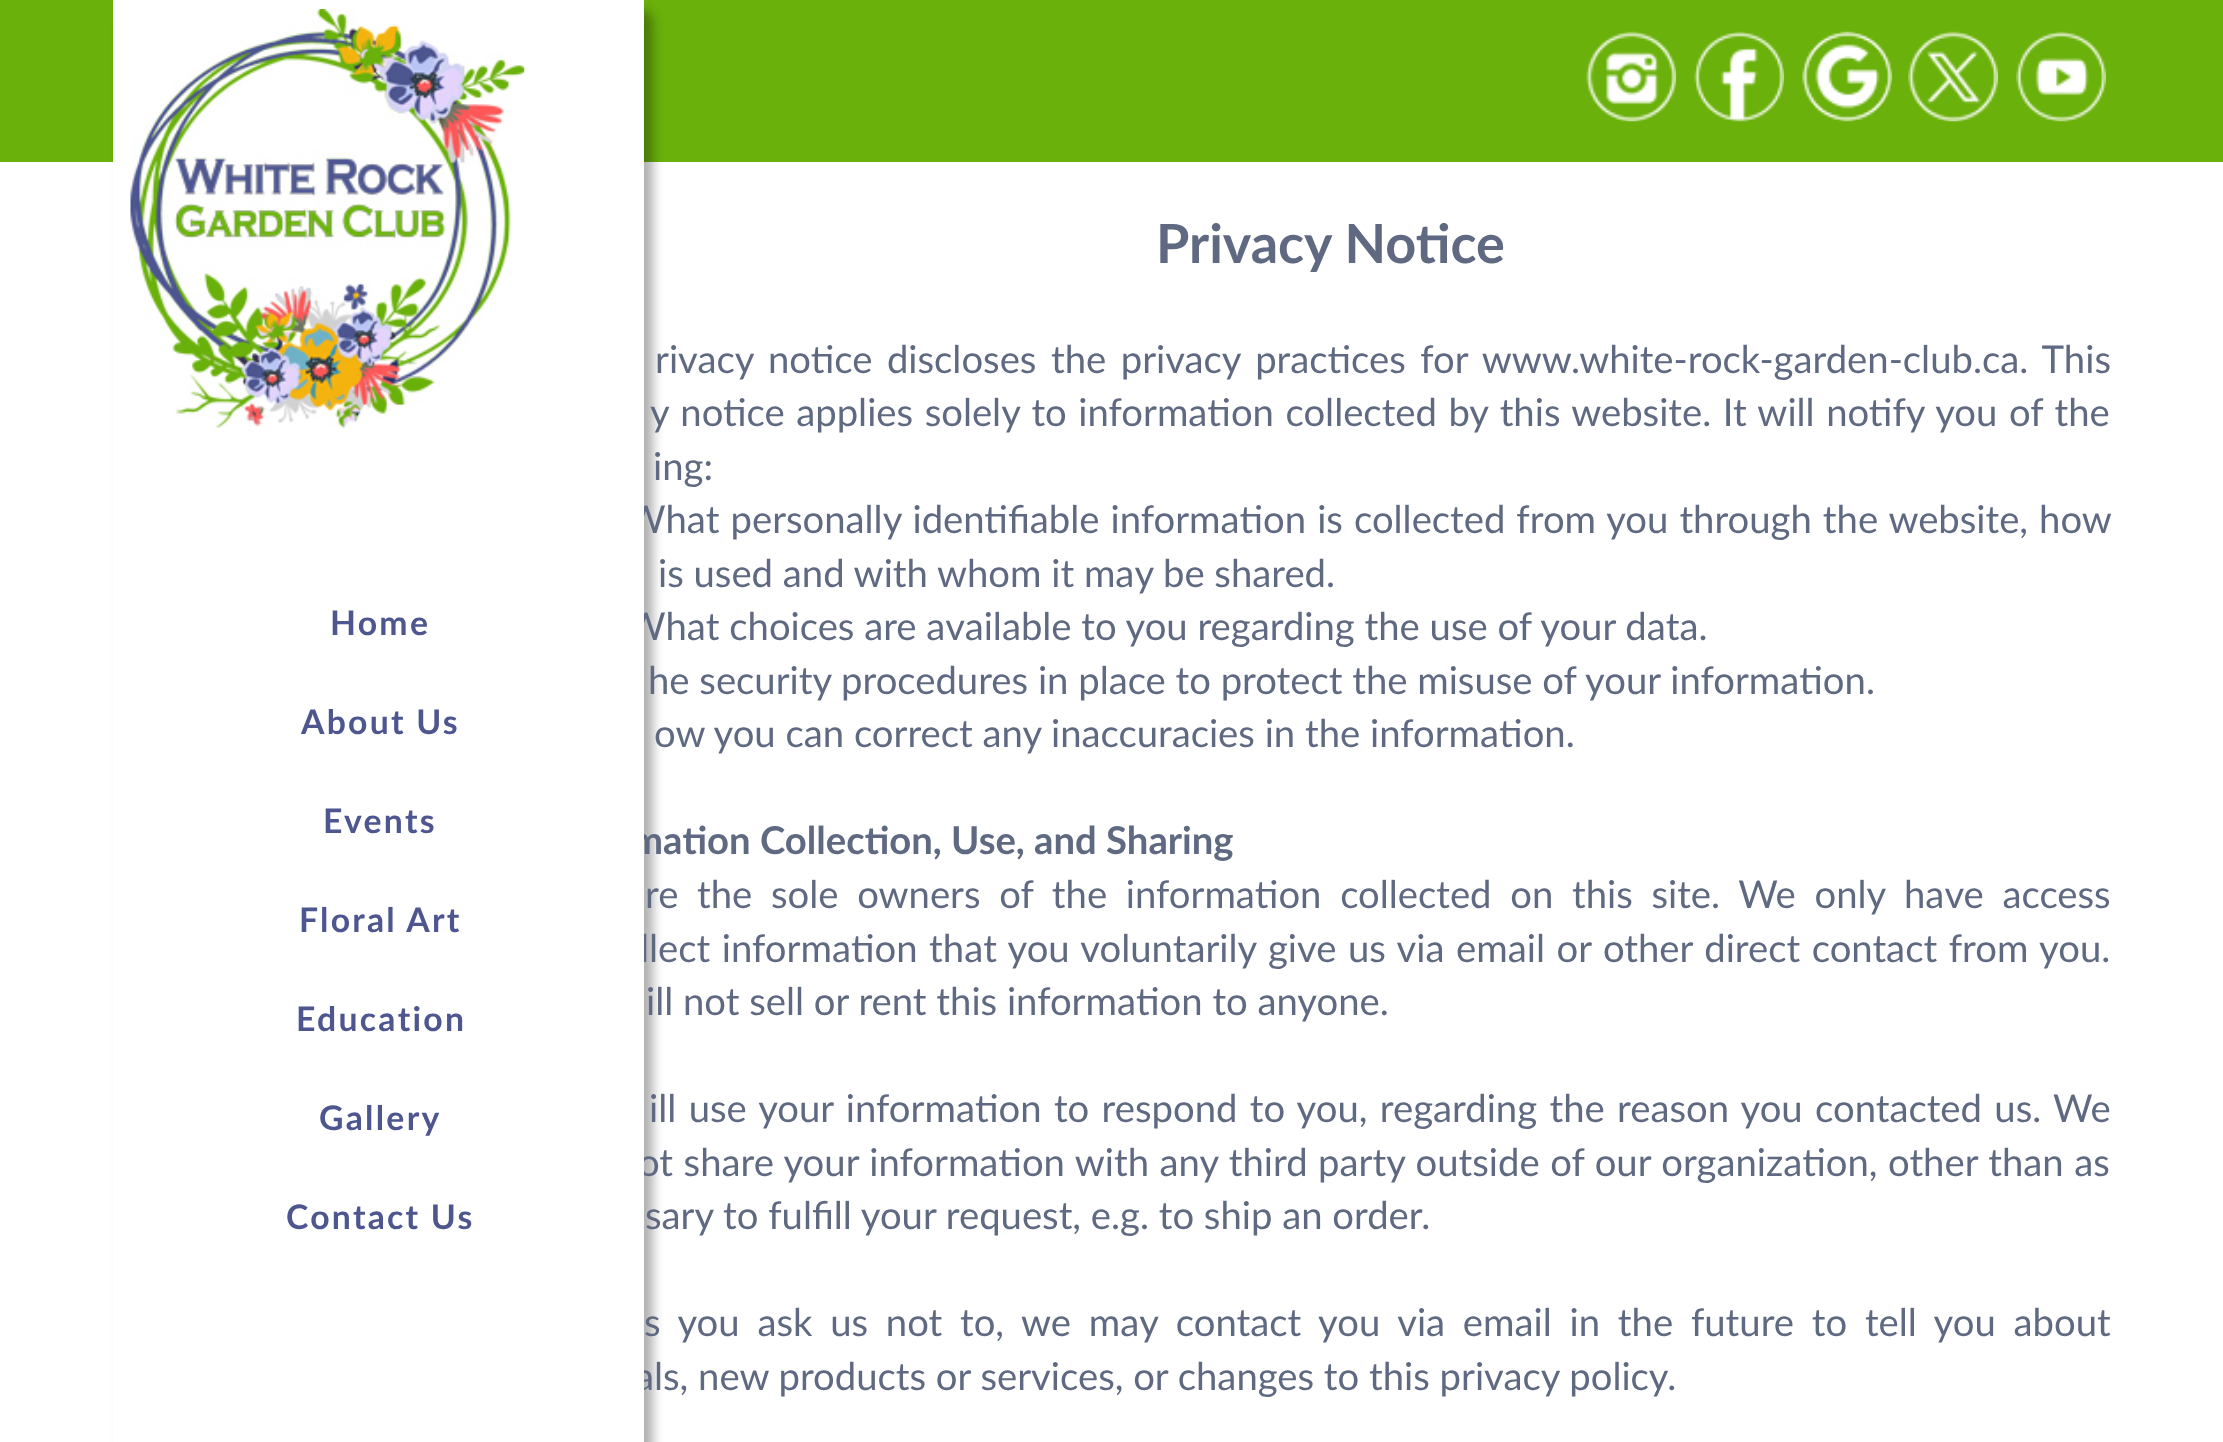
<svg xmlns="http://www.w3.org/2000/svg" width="2223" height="1442">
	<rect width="100%" height="100%" fill="#FFFFFF" />
	<rect x="0" y="0" width="2223" height="162" fill="#6AB10B" />
	<rect x="122" y="9" width="531" height="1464" rx="14" fill="#000000" fill-opacity="0.31" filter="blur(5.5px)" />
	<g font-family="Lato" font-size="38.25" fill="#5F6A82">
		<text x="626" y="533" word-spacing="1.25">What personally identifiable information is collected from you through the website, how</text>
		<text x="626" y="640">What choices are available to you regarding the use of your data.</text>
	</g>
	<text x="631" y="854" font-family="Lato" font-size="38.25" font-weight="700" fill="#5F6A82">mation Collection, Use, and Sharing</text>
	<g font-family="Lato" font-size="38.25" fill="#5F6A82">
		<text x="640" y="962" word-spacing="1.8">llect information that you voluntarily give us via email or other direct contact from you.</text>
		<text x="638" y="1176" word-spacing="0.75">ot share your information with any third party outside of our organization, other than as</text>
		<text x="635" y="1390">als, new products or services, or changes to this privacy policy.</text>
	</g>
	<rect x="113" y="0" width="531" height="1442" fill="#FFFFFF" />
	<image x="130" y="9" width="395" height="419" href="assets/img1.png" />
	<g font-family="Lato" font-size="33.75" font-weight="700" letter-spacing="2.25" fill="#4D568F">
		<text x="330" y="635">Home</text>
		<text x="301" y="734">About Us</text>
		<text x="323" y="833">Events</text>
		<text x="299" y="932">Floral Art</text>
		<text x="296" y="1031">Education</text>
		<text x="319" y="1130">Gallery</text>
		<text x="286" y="1229">Contact Us</text>
	</g>
	<image x="1586" y="31" width="91" height="91" href="assets/img2.png" />
	<image x="1694" y="31" width="91" height="91" href="assets/img3.png" />
	<image x="1802" y="31" width="91" height="91" href="assets/img4.png" />
	<image x="1908" y="31" width="90" height="91" href="assets/img5.png" />
	<image x="2016" y="31" width="90" height="91" href="assets/img6.png" />
	<text x="1156" y="263" font-family="Lato" font-size="54" font-weight="700" fill="#5F6A82">Privacy Notice</text>
	<g font-family="Lato" font-size="38.25" fill="#5F6A82">
		<text x="655" y="373" word-spacing="4.75">rivacy notice discloses the privacy practices for www.white-rock-garden-club.ca. This</text>
		<text x="650" y="426" word-spacing="1.75">y notice applies solely to information collected by this website. It will notify you of the</text>
		<text x="653" y="480">ing:</text>
		<text x="658" y="587">is used and with whom it may be shared.</text>
		<text x="648" y="694">he security procedures in place to protect the misuse of your information.</text>
		<text x="654" y="747">ow you can correct any inaccuracies in the information.</text>
		<text x="645" y="908" word-spacing="8.9">re the sole owners of the information collected on this site. We only have access</text>
		<text x="646" y="1015">ill not sell or rent this information to anyone.</text>
		<text x="649" y="1122" word-spacing="2.6">ill use your information to respond to you, regarding the reason you contacted us. We</text>
		<text x="645" y="1229">sary to fulfill your request, e.g. to ship an order.</text>
		<text x="644" y="1336" word-spacing="8">s you ask us not to, we may contact you via email in the future to tell you about</text>
	</g>
</svg>
